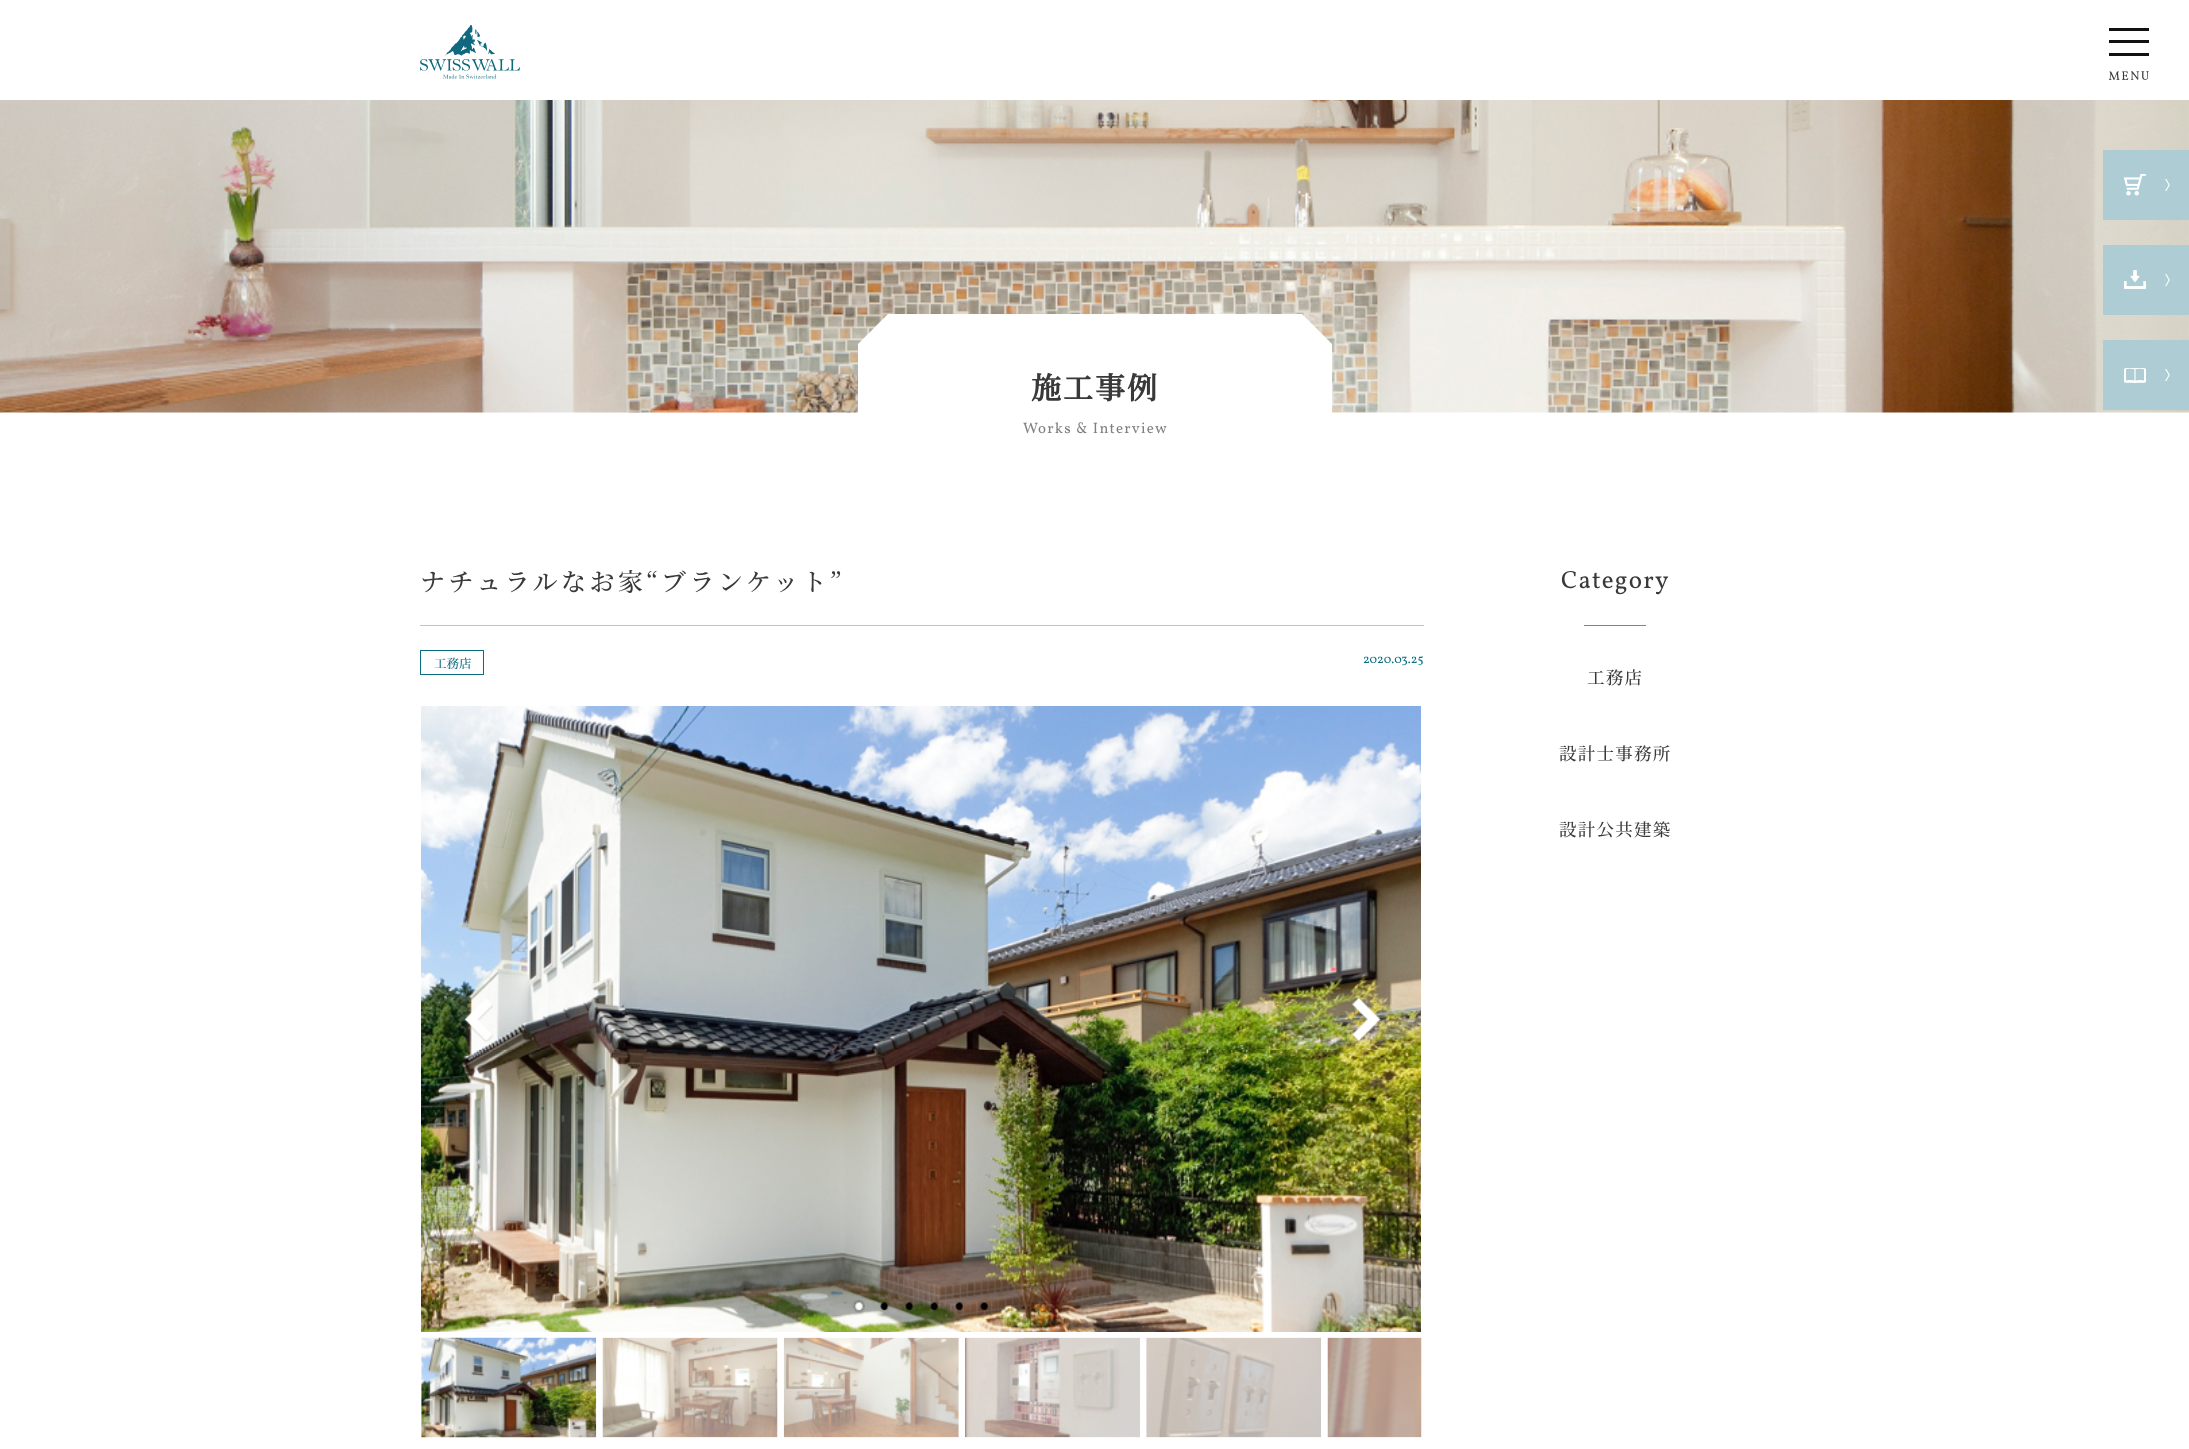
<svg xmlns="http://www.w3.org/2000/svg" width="2189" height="1449">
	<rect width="100%" height="100%" fill="#FFFFFF" />
	<image x="420" y="25" width="100" height="54" href="assets/img1.png" />
	<rect x="2109" y="28" width="40" height="3" fill="#111111" />
	<rect x="2109" y="40" width="40" height="3" fill="#111111" />
	<rect x="2109" y="53" width="40" height="3" fill="#111111" />
	<image x="2109" y="71" width="40" height="9" href="assets/img2.png" />
	<image x="0" y="100" width="2189" height="313" href="assets/img7.png" />
	<rect x="2103" y="150" width="86" height="70" fill="#ADCCD3" />
	<image x="2124" y="174" width="22" height="22" href="assets/img3.png" />
	<image x="2165" y="179" width="5" height="12" href="assets/img4.png" />
	<rect x="2103" y="245" width="86" height="70" fill="#ADCCD3" />
	<image x="2124" y="270" width="22" height="19" href="assets/img5.png" />
	<image x="2165" y="274" width="5" height="12" href="assets/img4.png" />
	<rect x="2103" y="340" width="86" height="70" fill="#ADCCD3" />
	<image x="2124" y="368" width="22" height="15" href="assets/img6.png" />
	<image x="2165" y="369" width="5" height="12" href="assets/img4.png" />
	<path d="M1332 413V344L1302 314H888L858 344V413Z" fill="#FFFFFF" />
	<text x="1031" y="399" font-family="Noto Serif JP" font-size="30" font-weight="700" letter-spacing="2" fill="#393939">施工事例</text>
	<text x="1023" y="433" font-family="Vollkorn" font-size="15" letter-spacing="1.25" fill="#808080">Works &amp; Interview</text>
	<text x="420" y="591" font-family="Noto Serif JP" font-size="25" font-weight="500" letter-spacing="3.5" fill="#393939">ナチュラルなお家“ブランケット”</text>
	<rect x="420" y="625" width="1004" height="1" fill="#ACCBD2" />
	<rect x="420.5" y="650.5" width="63" height="24" fill="none" stroke="#0D6B80" />
	<text x="434" y="668" font-family="Noto Serif JP" font-size="12.5" font-weight="500" fill="#0D6B80">工務店</text>
	<text x="1363" y="663" font-family="Vollkorn" font-size="12.5" fill="#0D6B80">2020.03.25</text>
	<image x="421" y="706" width="1000" height="626" href="assets/img8.png" />
	<image x="464" y="999" width="29" height="43" href="assets/img9.png" />
	<image x="1352" y="997" width="29" height="45" href="assets/img10.png" />
	<image x="852" y="1300" width="13" height="13" href="assets/img11.png" />
	<image x="880" y="1302" width="9" height="9" href="assets/img12.png" />
	<image x="905" y="1302" width="9" height="9" href="assets/img13.png" />
	<image x="930" y="1302" width="9" height="9" href="assets/img14.png" />
	<image x="955" y="1302" width="9" height="9" href="assets/img15.png" />
	<image x="980" y="1302" width="9" height="9" href="assets/img16.png" />
	<image x="421" y="1337" width="176" height="101" href="assets/img17.png" />
	<image x="602" y="1337" width="176" height="101" href="assets/img18.png" />
	<image x="783" y="1337" width="176" height="101" href="assets/img19.png" />
	<image x="965" y="1337" width="175" height="101" href="assets/img20.png" />
	<image x="1146" y="1337" width="175" height="101" href="assets/img21.png" />
	<image x="1327" y="1337" width="95" height="101" href="assets/img22.png" />
	<text x="1561" y="588" font-family="Vollkorn" font-size="25" letter-spacing="1.25" fill="#393939">Category</text>
	<rect x="1584" y="625" width="62" height="1" fill="#838383" />
	<g font-family="Noto Serif JP" font-size="17.5" font-weight="500" letter-spacing="1.25" fill="#393939">
		<text x="1587" y="684">工務店</text>
		<text x="1559" y="760">設計士事務所</text>
		<text x="1559" y="836">設計公共建築</text>
	</g>
</svg>
